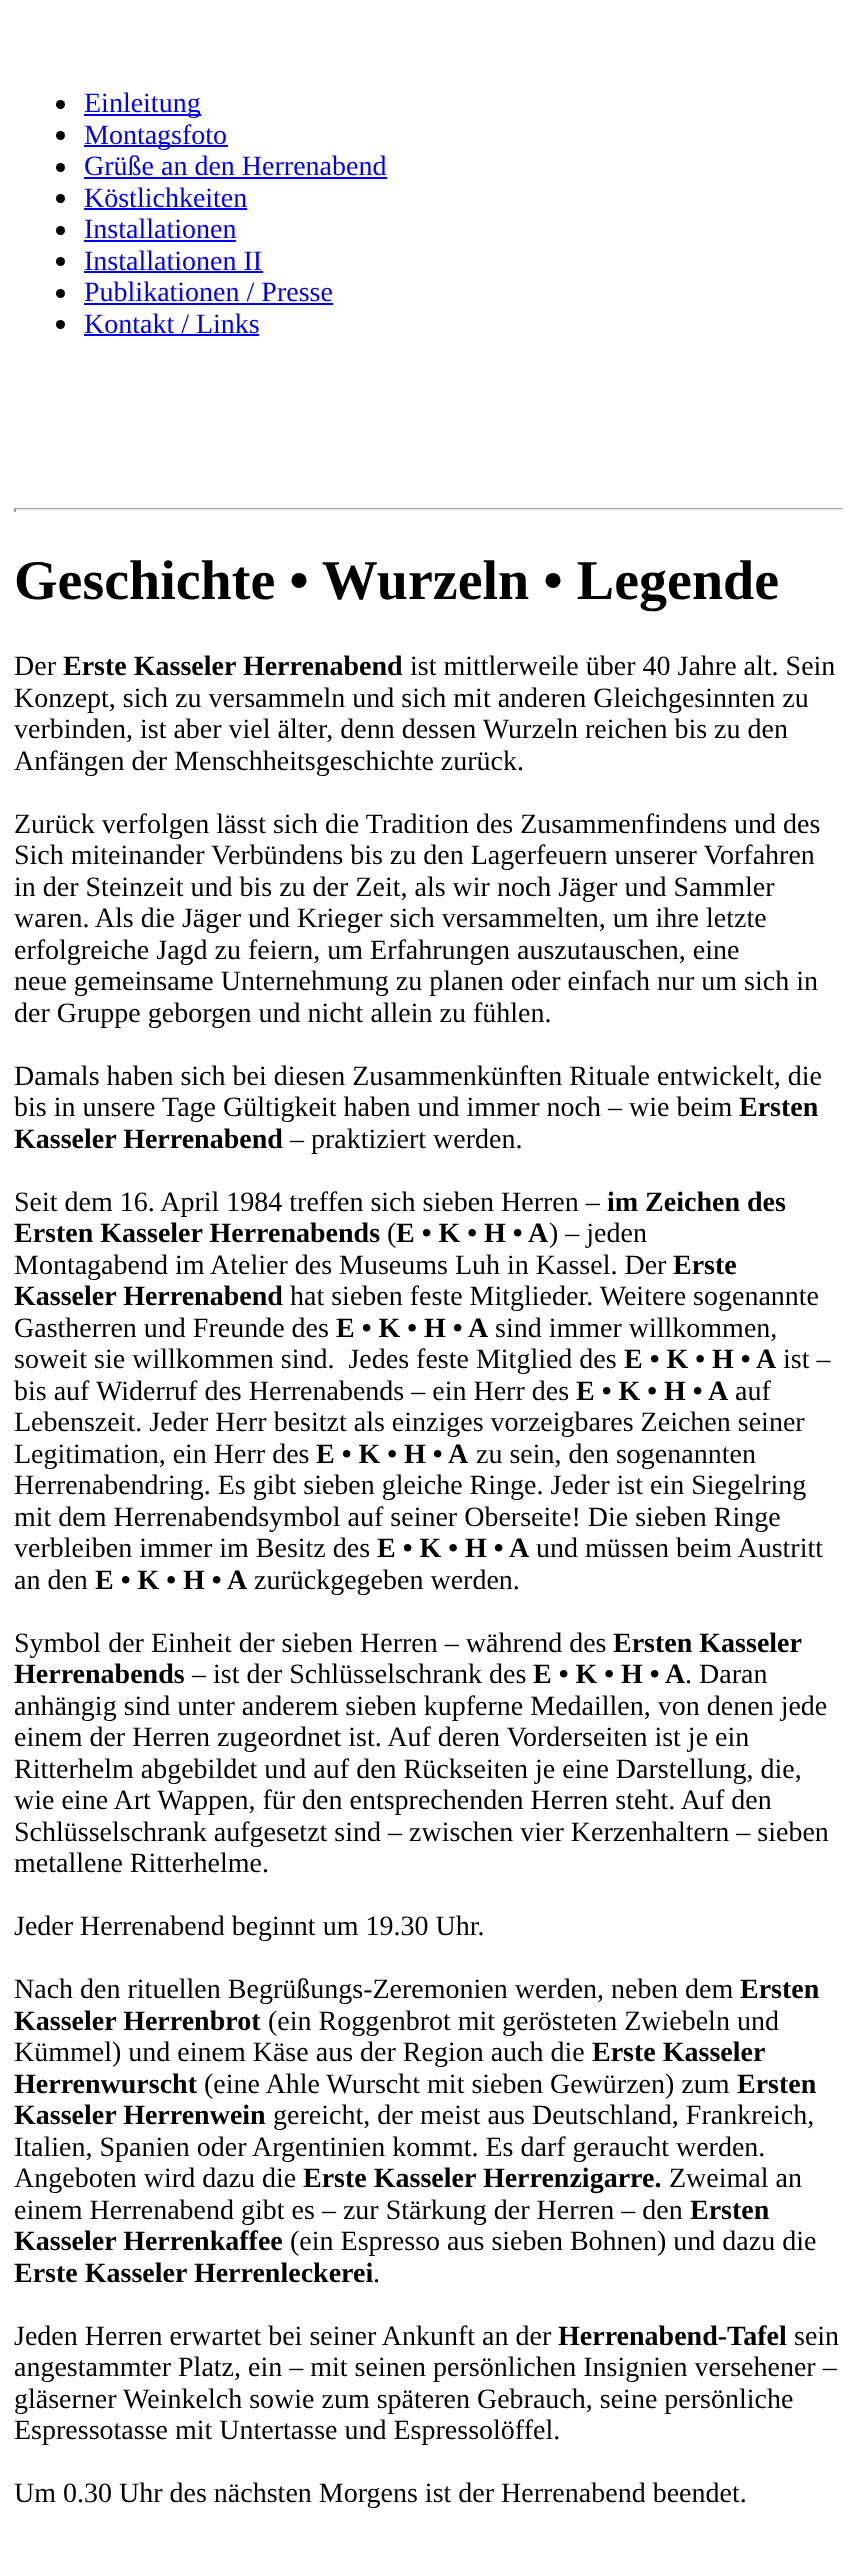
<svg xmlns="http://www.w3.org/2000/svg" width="856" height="2550">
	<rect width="100%" height="100%" fill="#FFFFFF" />
	<circle cx="60.5" cy="104.5" r="4.5" fill="#000000" />
	<rect x="84" y="114" width="117" height="2" fill="#0000EE" />
	<text x="84" y="112" font-family="Liberation Serif" font-size="28" fill="#0000EE">Einleitung</text>
	<circle cx="60.5" cy="135.5" r="4.5" fill="#000000" />
	<rect x="84" y="145" width="144" height="2" fill="#0000EE" />
	<text x="84" y="144" font-family="Liberation Serif" font-size="28" fill="#0000EE">Montagsfoto</text>
	<circle cx="60.5" cy="167.5" r="4.5" fill="#000000" />
	<text x="84" y="175" font-family="Liberation Serif" font-size="28" fill="#0000EE">Grüße an den Herrenabend</text>
	<rect x="84" y="177" width="303" height="2" fill="#0000EE" />
	<circle cx="60.5" cy="198.5" r="4.5" fill="#000000" />
	<text x="84" y="207" font-family="Liberation Serif" font-size="28" fill="#0000EE">Köstlichkeiten</text>
	<rect x="84" y="208" width="163" height="2" fill="#0000EE" />
	<circle cx="60.5" cy="230.5" r="4.5" fill="#000000" />
	<text x="84" y="238" font-family="Liberation Serif" font-size="28" fill="#0000EE">Installationen</text>
	<rect x="84" y="240" width="152" height="2" fill="#0000EE" />
	<circle cx="60.5" cy="261.5" r="4.5" fill="#000000" />
	<text x="84" y="270" font-family="Liberation Serif" font-size="28" fill="#0000EE">Installationen II</text>
	<rect x="84" y="271" width="179" height="2" fill="#0000EE" />
	<circle cx="60.5" cy="293.5" r="4.5" fill="#000000" />
	<text x="84" y="301" font-family="Liberation Serif" font-size="28" fill="#0000EE">Publikationen / Presse</text>
	<rect x="84" y="303" width="249" height="2" fill="#0000EE" />
	<circle cx="60.5" cy="324.5" r="4.5" fill="#000000" />
	<text x="84" y="333" font-family="Liberation Serif" font-size="28" fill="#0000EE">Kontakt / Links</text>
	<rect x="84" y="334" width="175" height="2" fill="#0000EE" />
	<rect x="14" y="508" width="830" height="1" fill="#9F9F9F" />
	<rect x="842" y="508" width="2" height="4" fill="#EEEEEE" />
	<rect x="14" y="509" width="830" height="2" fill="#EEEEEE" />
	<rect x="14" y="508" width="2" height="4" fill="#9F9F9F" />
	<text x="14" y="599" font-family="Liberation Serif" font-size="56" font-weight="700" fill="#000000">Geschichte • Wurzeln • Legende</text>
	<text x="14" y="675" font-family="Liberation Serif" font-size="28" fill="#000000">Der</text>
	<text x="63" y="675" font-family="Liberation Serif" font-size="28" font-weight="700" fill="#000000">Erste Kasseler Herrenabend</text>
	<g font-family="Liberation Serif" font-size="28" fill="#000000">
		<text x="410" y="675">ist mittlerweile über 40 Jahre alt. Sein</text>
		<text x="14" y="707">Konzept, sich zu versammeln und sich mit anderen Gleichgesinnten zu</text>
		<text x="14" y="738">verbinden, ist aber viel älter, denn dessen Wurzeln reichen bis zu den</text>
		<text x="14" y="770">Anfängen der Menschheitsgeschichte zurück.</text>
		<text x="14" y="833">Zurück verfolgen lässt sich die Tradition des Zusammenfindens und des</text>
		<text x="14" y="864">Sich miteinander Verbündens bis zu den Lagerfeuern unserer Vorfahren</text>
		<text x="14" y="896">in der Steinzeit und bis zu der Zeit, als wir noch Jäger und Sammler</text>
		<text x="14" y="927">waren. Als die Jäger und Krieger sich versammelten, um ihre letzte</text>
		<text x="14" y="959">erfolgreiche Jagd zu feiern, um Erfahrungen auszutauschen, eine</text>
		<text x="14" y="990">neue gemeinsame Unternehmung zu planen oder einfach nur um sich in</text>
		<text x="14" y="1022">der Gruppe geborgen und nicht allein zu fühlen.</text>
		<text x="14" y="1085">Damals haben sich bei diesen Zusammenkünften Rituale entwickelt, die</text>
		<text x="14" y="1116">bis in unsere Tage Gültigkeit haben und immer noch – wie beim</text>
	</g>
	<g font-family="Liberation Serif" font-size="28" font-weight="700" fill="#000000">
		<text x="739" y="1116">Ersten</text>
		<text x="14" y="1148">Kasseler Herrenabend</text>
	</g>
	<g font-family="Liberation Serif" font-size="28" fill="#000000">
		<text x="290" y="1148">– praktiziert werden.</text>
		<text x="14" y="1211">Seit dem 16. April 1984 treffen sich sieben Herren –</text>
	</g>
	<g font-family="Liberation Serif" font-size="28" font-weight="700" fill="#000000">
		<text x="607" y="1211">im Zeichen des</text>
		<text x="14" y="1242">Ersten Kasseler Herrenabends</text>
	</g>
	<text x="387" y="1242" font-family="Liberation Serif" font-size="28" fill="#000000">(</text>
	<text x="396" y="1242" font-family="Liberation Serif" font-size="28" font-weight="700" fill="#000000">E • K • H • A</text>
	<g font-family="Liberation Serif" font-size="28" fill="#000000">
		<text x="549" y="1242">) – jeden</text>
		<text x="14" y="1274">Montagabend im Atelier des Museums Luh in Kassel. Der</text>
	</g>
	<g font-family="Liberation Serif" font-size="28" font-weight="700" fill="#000000">
		<text x="673" y="1274">Erste</text>
		<text x="14" y="1305">Kasseler Herrenabend</text>
	</g>
	<g font-family="Liberation Serif" font-size="28" fill="#000000">
		<text x="290" y="1305">hat sieben feste Mitglieder. Weitere sogenannte</text>
		<text x="14" y="1337">Gastherren und Freunde des</text>
	</g>
	<text x="336" y="1337" font-family="Liberation Serif" font-size="28" font-weight="700" fill="#000000">E • K • H • A</text>
	<g font-family="Liberation Serif" font-size="28" fill="#000000">
		<text x="495" y="1337">sind immer willkommen,</text>
		<text x="14" y="1368" xml:space="preserve">soweit sie willkommen sind.  Jedes feste Mitglied des</text>
	</g>
	<text x="624" y="1368" font-family="Liberation Serif" font-size="28" font-weight="700" fill="#000000">E • K • H • A</text>
	<g font-family="Liberation Serif" font-size="28" fill="#000000">
		<text x="783" y="1368">ist –</text>
		<text x="14" y="1400">bis auf Widerruf des Herrenabends – ein Herr des</text>
	</g>
	<text x="576" y="1400" font-family="Liberation Serif" font-size="28" font-weight="700" fill="#000000">E • K • H • A</text>
	<g font-family="Liberation Serif" font-size="28" fill="#000000">
		<text x="735" y="1400">auf</text>
		<text x="14" y="1431">Lebenszeit. Jeder Herr besitzt als einziges vorzeigbares Zeichen seiner</text>
		<text x="14" y="1463">Legitimation, ein Herr des</text>
	</g>
	<text x="316" y="1463" font-family="Liberation Serif" font-size="28" font-weight="700" fill="#000000">E • K • H • A</text>
	<g font-family="Liberation Serif" font-size="28" fill="#000000">
		<text x="476" y="1463">zu sein, den sogenannten</text>
		<text x="14" y="1494">Herrenabendring. Es gibt sieben gleiche Ringe. Jeder ist ein Siegelring</text>
		<text x="14" y="1526">mit dem Herrenabendsymbol auf seiner Oberseite! Die sieben Ringe</text>
		<text x="14" y="1557">verbleiben immer im Besitz des</text>
	</g>
	<text x="377" y="1557" font-family="Liberation Serif" font-size="28" font-weight="700" fill="#000000">E • K • H • A</text>
	<g font-family="Liberation Serif" font-size="28" fill="#000000">
		<text x="536" y="1557">und müssen beim Austritt</text>
		<text x="14" y="1589">an den</text>
	</g>
	<text x="95" y="1589" font-family="Liberation Serif" font-size="28" font-weight="700" fill="#000000">E • K • H • A</text>
	<g font-family="Liberation Serif" font-size="28" fill="#000000">
		<text x="254" y="1589">zurückgegeben werden.</text>
		<text x="14" y="1652">Symbol der Einheit der sieben Herren – während des</text>
	</g>
	<g font-family="Liberation Serif" font-size="28" font-weight="700" fill="#000000">
		<text x="613" y="1652">Ersten Kasseler</text>
		<text x="14" y="1683">Herrenabends</text>
	</g>
	<text x="192" y="1683" font-family="Liberation Serif" font-size="28" fill="#000000">– ist der Schlüsselschrank des</text>
	<text x="533" y="1683" font-family="Liberation Serif" font-size="28" font-weight="700" fill="#000000">E • K • H • A</text>
	<g font-family="Liberation Serif" font-size="28" fill="#000000">
		<text x="685" y="1683">. Daran</text>
		<text x="14" y="1715">anhängig sind unter anderem sieben kupferne Medaillen, von denen jede</text>
		<text x="14" y="1746">einem der Herren zugeordnet ist. Auf deren Vorderseiten ist je ein</text>
		<text x="14" y="1778">Ritterhelm abgebildet und auf den Rückseiten je eine Darstellung, die,</text>
		<text x="14" y="1809">wie eine Art Wappen, für den entsprechenden Herren steht. Auf den</text>
		<text x="14" y="1841">Schlüsselschrank aufgesetzt sind – zwischen vier Kerzenhaltern – sieben</text>
		<text x="14" y="1872">metallene Ritterhelme.</text>
		<text x="14" y="1935">Jeder Herrenabend beginnt um 19.30 Uhr.</text>
		<text x="14" y="1998">Nach den rituellen Begrüßungs-Zeremonien werden, neben dem</text>
	</g>
	<g font-family="Liberation Serif" font-size="28" font-weight="700" fill="#000000">
		<text x="740" y="1998">Ersten</text>
		<text x="14" y="2030">Kasseler Herrenbrot</text>
	</g>
	<g font-family="Liberation Serif" font-size="28" fill="#000000">
		<text x="268" y="2030">(ein Roggenbrot mit gerösteten Zwiebeln und</text>
		<text x="14" y="2061">Kümmel) und einem Käse aus der Region auch die</text>
	</g>
	<g font-family="Liberation Serif" font-size="28" font-weight="700" fill="#000000">
		<text x="592" y="2061">Erste Kasseler</text>
		<text x="14" y="2093">Herrenwurscht</text>
	</g>
	<text x="204" y="2093" font-family="Liberation Serif" font-size="28" fill="#000000">(eine Ahle Wurscht mit sieben Gewürzen) zum</text>
	<g font-family="Liberation Serif" font-size="28" font-weight="700" fill="#000000">
		<text x="737" y="2093">Ersten</text>
		<text x="14" y="2124">Kasseler Herrenwein</text>
	</g>
	<g font-family="Liberation Serif" font-size="28" fill="#000000">
		<text x="273" y="2124">gereicht, der meist aus Deutschland, Frankreich,</text>
		<text x="14" y="2156">Italien, Spanien oder Argentinien kommt. Es darf geraucht werden.</text>
		<text x="14" y="2187">Angeboten wird dazu die</text>
	</g>
	<text x="303" y="2187" font-family="Liberation Serif" font-size="28" font-weight="700" fill="#000000">Erste Kasseler Herrenzigarre.</text>
	<g font-family="Liberation Serif" font-size="28" fill="#000000">
		<text x="669" y="2187">Zweimal an</text>
		<text x="14" y="2219">einem Herrenabend gibt es – zur Stärkung der Herren – den</text>
	</g>
	<g font-family="Liberation Serif" font-size="28" font-weight="700" fill="#000000">
		<text x="690" y="2219">Ersten</text>
		<text x="14" y="2250">Kasseler Herrenkaffee</text>
	</g>
	<text x="290" y="2250" font-family="Liberation Serif" font-size="28" fill="#000000">(ein Espresso aus sieben Bohnen) und dazu die</text>
	<text x="14" y="2282" font-family="Liberation Serif" font-size="28" font-weight="700" fill="#000000">Erste Kasseler Herrenleckerei</text>
	<g font-family="Liberation Serif" font-size="28" fill="#000000">
		<text x="373" y="2282">.</text>
		<text x="14" y="2345">Jeden Herren erwartet bei seiner Ankunft an der</text>
	</g>
	<text x="558" y="2345" font-family="Liberation Serif" font-size="28" font-weight="700" fill="#000000">Herrenabend-Tafel</text>
	<g font-family="Liberation Serif" font-size="28" fill="#000000">
		<text x="794" y="2345">sein</text>
		<text x="14" y="2376">angestammter Platz, ein – mit seinen persönlichen Insignien versehener –</text>
		<text x="14" y="2408">gläserner Weinkelch sowie zum späteren Gebrauch, seine persönliche</text>
		<text x="14" y="2439">Espressotasse mit Untertasse und Espressolöffel.</text>
		<text x="14" y="2502">Um 0.30 Uhr des nächsten Morgens ist der Herrenabend beendet.</text>
	</g>
</svg>
